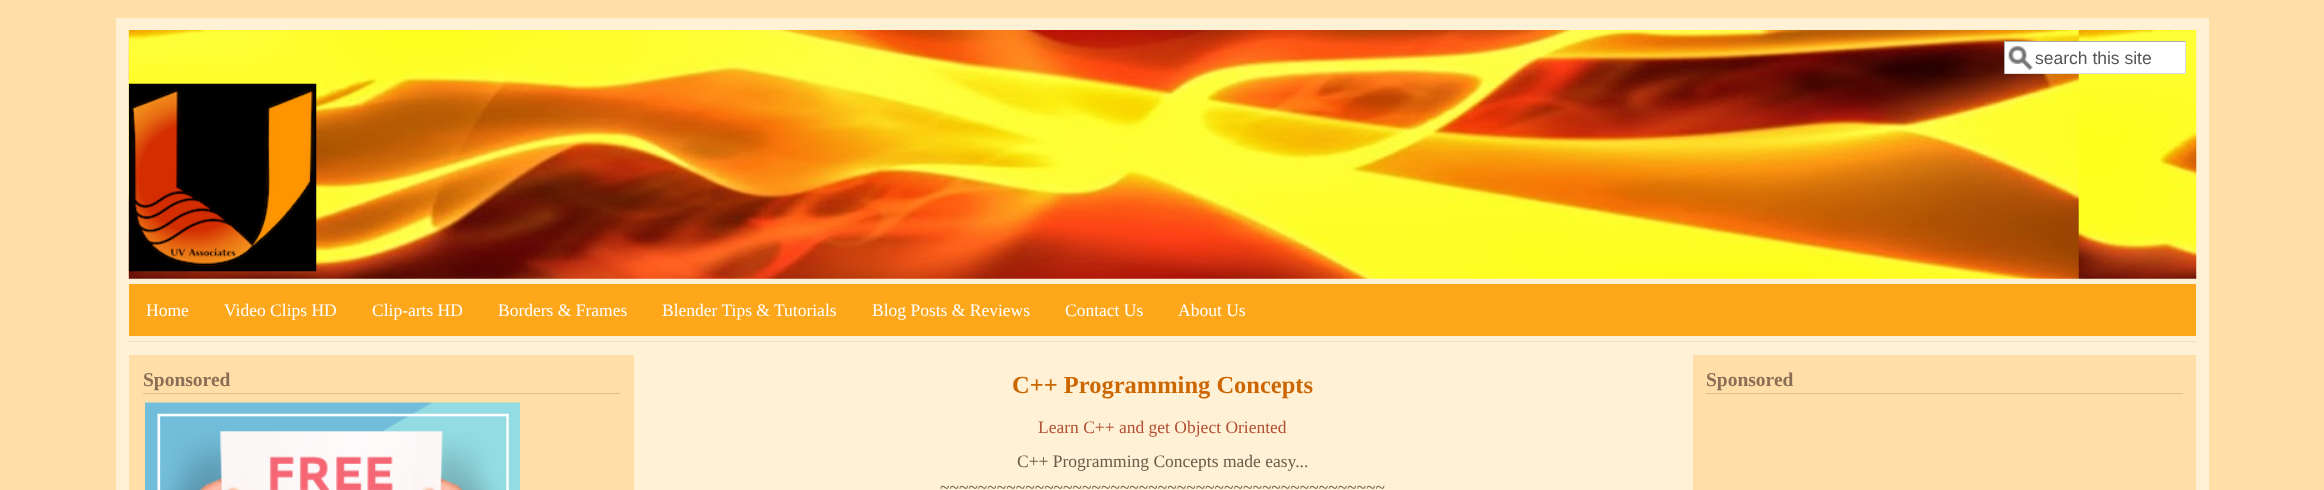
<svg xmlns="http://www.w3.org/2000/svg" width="2324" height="490">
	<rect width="100%" height="100%" fill="#FFDEA8" />
	<rect x="116" y="18" width="2093" height="472" fill="#FFF1D6" />
	<image x="128" y="30" width="2069" height="249" href="assets/img1.png" />
	<rect x="2005" y="42" width="180" height="31" fill="#FFFFFF" />
	<image x="2008" y="46" width="25" height="25" href="assets/img2.png" />
	<rect x="2004" y="41" width="182" height="1" fill="#AAAAAA" />
	<rect x="2185" y="41" width="1" height="33" fill="#DDDDDD" />
	<rect x="2004" y="73" width="182" height="1" fill="#DDDDDD" />
	<rect x="2004" y="41" width="1" height="33" fill="#AAAAAA" />
	<text x="2035" y="64" font-family="Liberation Sans" font-size="17.5" fill="#555555">search this site</text>
	<image x="128" y="83" width="189" height="189" href="assets/img3.png" />
	<rect x="129" y="341" width="2067" height="1" fill="#EDDDC9" />
	<rect x="129" y="284" width="2067" height="52" fill="#FFA71A" />
	<g font-family="Liberation Serif" font-size="17.5" fill="#FFFFFF">
		<text x="146" y="316">Home</text>
		<text x="224" y="316">Video Clips HD</text>
		<text x="372" y="316">Clip-arts HD</text>
		<text x="498" y="316">Borders &amp; Frames</text>
		<text x="662" y="316">Blender Tips &amp; Tutorials</text>
		<text x="872" y="316">Blog Posts &amp; Reviews</text>
		<text x="1065" y="316">Contact Us</text>
		<text x="1178" y="316">About Us</text>
	</g>
	<rect x="129" y="355" width="505" height="135" fill="#FFDEA8" />
	<rect x="143" y="393" width="477" height="1" fill="#E5BE8B" />
	<text x="143" y="386" font-family="Liberation Serif" font-size="19.5" font-weight="700" fill="#8A6E56">Sponsored</text>
	<image x="145" y="402" width="375" height="88" href="assets/img4.png" />
	<text x="1012" y="393" font-family="Liberation Serif" font-size="24.5" font-weight="700" fill="#CC6600">C++ Programming Concepts</text>
	<text x="1038" y="433" font-family="Liberation Serif" font-size="17.5" fill="#B34F32">Learn C++ and get Object Oriented</text>
	<g font-family="Liberation Serif" font-size="17.5" fill="#685C4A">
		<text x="1017" y="467">C++ Programming Concepts made easy...</text>
		<text x="940" y="493">~~~~~~~~~~~~~~~~~~~~~~~~~~~~~~~~~~~~~~~~~~~~~~~</text>
	</g>
	<rect x="1693" y="355" width="503" height="135" fill="#FFDEA8" />
	<rect x="1706" y="393" width="477" height="1" fill="#E5BE8B" />
	<text x="1706" y="386" font-family="Liberation Serif" font-size="19.5" font-weight="700" fill="#8A6E56">Sponsored</text>
</svg>
